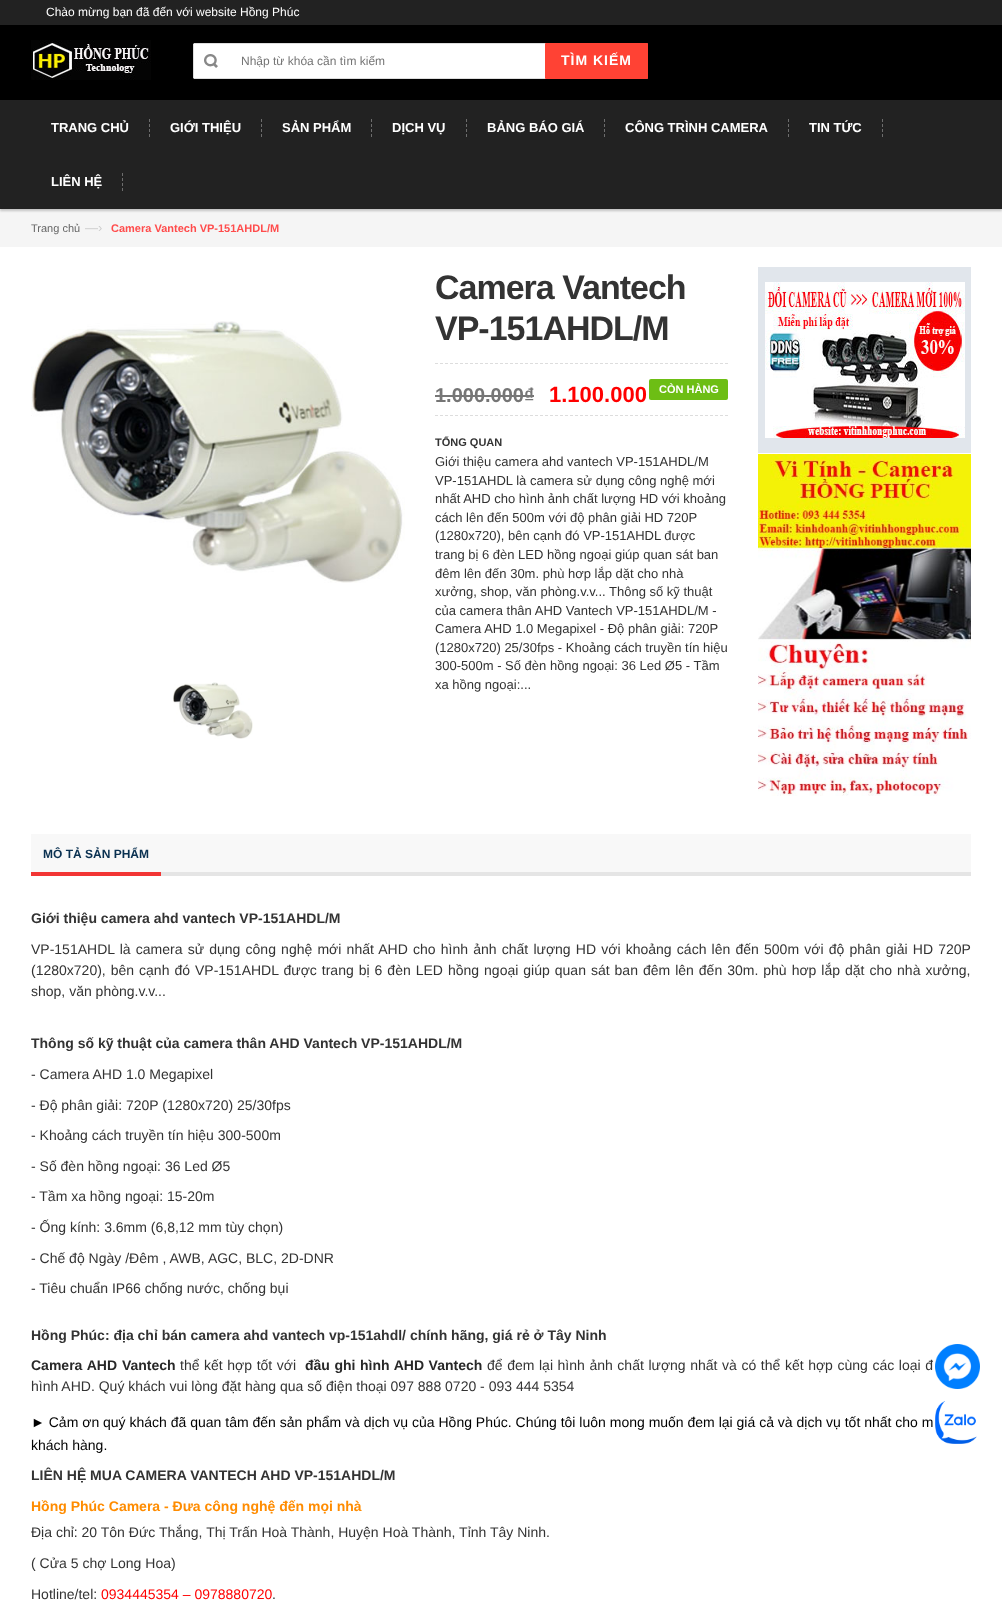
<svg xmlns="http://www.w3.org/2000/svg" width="1002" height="1609">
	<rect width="100%" height="100%" fill="#FFFFFF" />
	<rect x="0" y="25" width="1002" height="75" fill="#000000" />
	<rect x="0" y="0" width="1002" height="25" fill="#222222" />
	<text x="46" y="16" font-family="Liberation Sans" font-size="12" fill="#FFFFFF">Chào mừng bạn đã đến với website Hồng Phúc</text>
	<image x="31" y="40" width="120" height="40" href="assets/img1.png" />
	<rect x="193" y="43" width="455" height="36" rx="2" fill="#FFFFFF" />
	<image x="204" y="54" width="14" height="14" href="assets/img2.png" />
	<rect x="194" y="43" width="351" height="1" fill="#DDDDDD" />
	<rect x="194" y="78" width="351" height="1" fill="#DDDDDD" />
	<rect x="193" y="44" width="1" height="34" fill="#DDDDDD" />
	<text x="241" y="65" font-family="Liberation Sans" font-size="12" fill="#757575">Nhập từ khóa cần tìm kiếm</text>
	<path d="M545.5 43.5H647C647.5 43.5 647.5 43.5 647.5 44V78C647.5 78.5 647.5 78.5 647 78.5H545.5Z" fill="#FF4234" stroke="#FF4234" />
	<text x="561" y="65" font-family="Liberation Sans" font-size="14" font-weight="700" letter-spacing="1" fill="#FFFFFF">TÌM KIẾM</text>
	<rect x="0" y="209" width="1002" height="38" fill="#F5F5F5" />
	<rect x="0" y="102" width="1002" height="109" fill="#000000" fill-opacity="0.2" filter="blur(1px)" />
	<rect x="0" y="100" width="1002" height="109" fill="#222222" />
	<path d="M149.5 119V137" fill="none" stroke="#6D6D6D" stroke-dasharray="3 2" />
	<text x="51" y="132" font-family="Liberation Sans" font-size="13" font-weight="700" fill="#FFFFFF">TRANG CHỦ</text>
	<path d="M261.5 119V137" fill="none" stroke="#6D6D6D" stroke-dasharray="3 2" />
	<text x="170" y="132" font-family="Liberation Sans" font-size="13" font-weight="700" fill="#FFFFFF">GIỚI THIỆU</text>
	<path d="M371.5 119V137" fill="none" stroke="#6D6D6D" stroke-dasharray="3 2" />
	<text x="282" y="132" font-family="Liberation Sans" font-size="13" font-weight="700" fill="#FFFFFF">SẢN PHẨM</text>
	<path d="M466.5 119V137" fill="none" stroke="#6D6D6D" stroke-dasharray="3 2" />
	<text x="392" y="132" font-family="Liberation Sans" font-size="13" font-weight="700" fill="#FFFFFF">DỊCH VỤ</text>
	<path d="M604.5 119V137" fill="none" stroke="#6D6D6D" stroke-dasharray="3 2" />
	<text x="487" y="132" font-family="Liberation Sans" font-size="13" font-weight="700" fill="#FFFFFF">BẢNG BÁO GIÁ</text>
	<path d="M788.5 119V137" fill="none" stroke="#6D6D6D" stroke-dasharray="3 2" />
	<text x="625" y="132" font-family="Liberation Sans" font-size="13" font-weight="700" fill="#FFFFFF">CÔNG TRÌNH CAMERA</text>
	<path d="M882.5 119V137" fill="none" stroke="#6D6D6D" stroke-dasharray="3 2" />
	<text x="809" y="132" font-family="Liberation Sans" font-size="13" font-weight="700" fill="#FFFFFF">TIN TỨC</text>
	<path d="M122.5 173V191" fill="none" stroke="#6D6D6D" stroke-dasharray="3 2" />
	<text x="51" y="186" font-family="Liberation Sans" font-size="13" font-weight="700" fill="#FFFFFF">LIÊN HỆ</text>
	<text x="31" y="232" font-family="Liberation Sans" font-size="11" fill="#666666">Trang chủ</text>
	<text x="85" y="232" font-family="Liberation Sans" font-size="13" fill="#CCCCCC">—›</text>
	<text x="111" y="232" font-family="Liberation Sans" font-size="11" font-weight="700" fill="#FF4C4C">Camera Vantech VP-151AHDL/M</text>
	<image x="31" y="321" width="374" height="262" href="assets/img3.png" />
	<image x="173" y="682" width="80" height="57" href="assets/img4.png" />
	<path d="M435 363.5H728" fill="none" stroke="#DDDDDD" stroke-dasharray="3 2" />
	<g font-family="Liberation Sans" font-size="34" font-weight="700" letter-spacing="-1" fill="#333333">
		<text x="435" y="299">Camera Vantech</text>
		<text x="435" y="340">VP-151AHDL/M</text>
	</g>
	<path d="M435 415.5H728" fill="none" stroke="#DDDDDD" stroke-dasharray="3 2" />
	<text x="435" y="402" font-family="Liberation Sans" font-size="20" font-weight="700" fill="#757575">1.000.000₫</text>
	<rect x="435" y="395" width="99" height="2" fill="#777777" />
	<text x="549" y="402" font-family="Liberation Sans" font-size="22" font-weight="700" fill="#FF0000">1.100.000</text>
	<rect x="649" y="379" width="79" height="21" rx="2" fill="#6DBE14" />
	<text x="659" y="393" font-family="Liberation Sans" font-size="11" font-weight="700" fill="#FFFFFF">CÒN HÀNG</text>
	<text x="435" y="446" font-family="Liberation Sans" font-size="11" font-weight="700" fill="#333333">TỔNG QUAN</text>
	<g font-family="Liberation Sans" font-size="13" fill="#333333">
		<text x="435" y="466">Giới thiệu camera ahd vantech VP-151AHDL/M</text>
		<text x="435" y="485">VP-151AHDL là camera sử dụng công nghệ mới</text>
		<text x="435" y="503">nhất AHD cho hình ảnh chất lượng HD với khoảng</text>
		<text x="435" y="522">cách lên đến 500m với độ phân giải HD 720P</text>
		<text x="435" y="540">(1280x720), bên cạnh đó VP-151AHDL được</text>
		<text x="435" y="559">trang bị 6 đèn LED hồng ngoại giúp quan sát ban</text>
		<text x="435" y="578">đêm lên đến 30m. phù hơp lắp dặt cho nhà</text>
		<text x="435" y="596">xưởng, shop, văn phòng.v.v... Thông số kỹ thuật</text>
		<text x="435" y="615">của camera thân AHD Vantech VP-151AHDL/M -</text>
		<text x="435" y="633">Camera AHD 1.0 Megapixel - Độ phân giải: 720P</text>
		<text x="435" y="652">(1280x720) 25/30fps - Khoảng cách truyền tín hiệu</text>
		<text x="435" y="670">300-500m - Số đèn hồng ngoại: 36 Led Ø5 - Tầm</text>
		<text x="435" y="689">xa hồng ngoại:...</text>
	</g>
	<rect x="758" y="267" width="213" height="186" fill="#E1E6EC" />
	<image x="765" y="282" width="200" height="156" href="assets/img5.png" />
	<image x="758" y="454" width="213" height="342" href="assets/img6.png" />
	<rect x="31" y="834" width="940" height="38" fill="#F8F8F8" />
	<rect x="161" y="872" width="810" height="4" fill="#E5E5E5" />
	<rect x="31" y="872" width="130" height="4" fill="#F23534" />
	<text x="43" y="858" font-family="Liberation Sans" font-size="12" font-weight="700" fill="#0A3151">MÔ TẢ SẢN PHẨM</text>
	<text x="31" y="923" font-family="Liberation Sans" font-size="14" font-weight="700" fill="#333333">Giới thiệu camera ahd vantech VP-151AHDL/M</text>
	<g font-family="Liberation Sans" font-size="14" fill="#333333">
		<text x="31" y="954" word-spacing="1.3">VP-151AHDL là camera sử dụng công nghệ mới nhất AHD cho hình ảnh chất lượng HD với khoảng cách lên đến 500m với độ phân giải HD 720P</text>
		<text x="31" y="975" word-spacing="1.1">(1280x720), bên cạnh đó VP-151AHDL được trang bị 6 đèn LED hồng ngoại giúp quan sát ban đêm lên đến 30m. phù hơp lắp dặt cho nhà xưởng,</text>
		<text x="31" y="996">shop, văn phòng.v.v...</text>
	</g>
	<text x="31" y="1048" font-family="Liberation Sans" font-size="14" font-weight="700" fill="#333333">Thông số kỹ thuật của camera thân AHD Vantech VP-151AHDL/M</text>
	<g font-family="Liberation Sans" font-size="14" fill="#333333">
		<text x="31" y="1079">- Camera AHD 1.0 Megapixel</text>
		<text x="31" y="1110">- Độ phân giải: 720P (1280x720) 25/30fps</text>
		<text x="31" y="1140">- Khoảng cách truyền tín hiệu 300-500m</text>
		<text x="31" y="1171">- Số đèn hồng ngoại: 36 Led Ø5</text>
		<text x="31" y="1201">- Tầm xa hồng ngoại: 15-20m</text>
		<text x="31" y="1232">- Ống kính: 3.6mm (6,8,12 mm tùy chọn)</text>
		<text x="31" y="1263">- Chế độ Ngày /Đêm , AWB, AGC, BLC, 2D-DNR</text>
		<text x="31" y="1293">- Tiêu chuẩn IP66 chống nước, chống bụi</text>
	</g>
	<text x="31" y="1340" font-family="Liberation Sans" font-size="14" font-weight="700" fill="#333333">Hồng Phúc: địa chỉ bán camera ahd vantech vp-151ahdl/ chính hãng, giá rẻ ở Tây Ninh</text>
	<text x="31" y="1370" word-spacing="1" font-family="Liberation Sans" font-size="14" font-weight="700" fill="#282828">Camera AHD Vantech</text>
	<text x="180" y="1370" word-spacing="0.7" font-family="Liberation Sans" font-size="14" fill="#333333">thể kết hợp tốt với</text>
	<text x="305" y="1370" word-spacing="0.7" font-family="Liberation Sans" font-size="14" font-weight="700" fill="#282828">đầu ghi hình AHD Vantech</text>
	<g font-family="Liberation Sans" font-size="14" fill="#333333">
		<text x="487" y="1370" word-spacing="0.7">để đem lại hình ảnh chất lượng nhất và có thể kết hợp cùng các loại đ</text>
		<text x="31" y="1391">hình AHD. Quý khách vui lòng đặt hàng qua số điện thoại 097 888 0720 - 093 444 5354</text>
	</g>
	<g font-family="Liberation Sans" font-size="14" fill="#000000">
		<text x="31" y="1427">► Cảm ơn quý khách đã quan tâm đến sản phẩm và dịch vụ của Hồng Phúc. Chúng tôi luôn mong muốn đem lại giá cả và dịch vụ tốt nhất cho m</text>
		<text x="31" y="1450">khách hàng.</text>
	</g>
	<text x="31" y="1480" font-family="Liberation Sans" font-size="14" font-weight="700" fill="#333333">LIÊN HỆ MUA CAMERA VANTECH AHD VP-151AHDL/M</text>
	<text x="31" y="1511" font-family="Liberation Sans" font-size="14" font-weight="700" fill="#FF8C00">Hồng Phúc Camera - Đưa công nghệ đến mọi nhà</text>
	<g font-family="Liberation Sans" font-size="14" fill="#333333">
		<text x="31" y="1537">Địa chỉ: 20 Tôn Đức Thắng, Thị Trấn Hoà Thành, Huyện Hoà Thành, Tỉnh Tây Ninh.</text>
		<text x="31" y="1568">( Cửa 5 chợ Long Hoa)</text>
		<text x="31" y="1599">Hotline/tel:</text>
	</g>
	<text x="101" y="1599" font-family="Liberation Sans" font-size="14" fill="#FF0000">0934445354 – 0978880720</text>
	<text x="272" y="1599" font-family="Liberation Sans" font-size="14" fill="#333333">.</text>
	<image x="935" y="1344" width="45" height="45" href="assets/img7.png" />
	<image x="935" y="1401" width="42" height="43" href="assets/img8.png" />
</svg>
